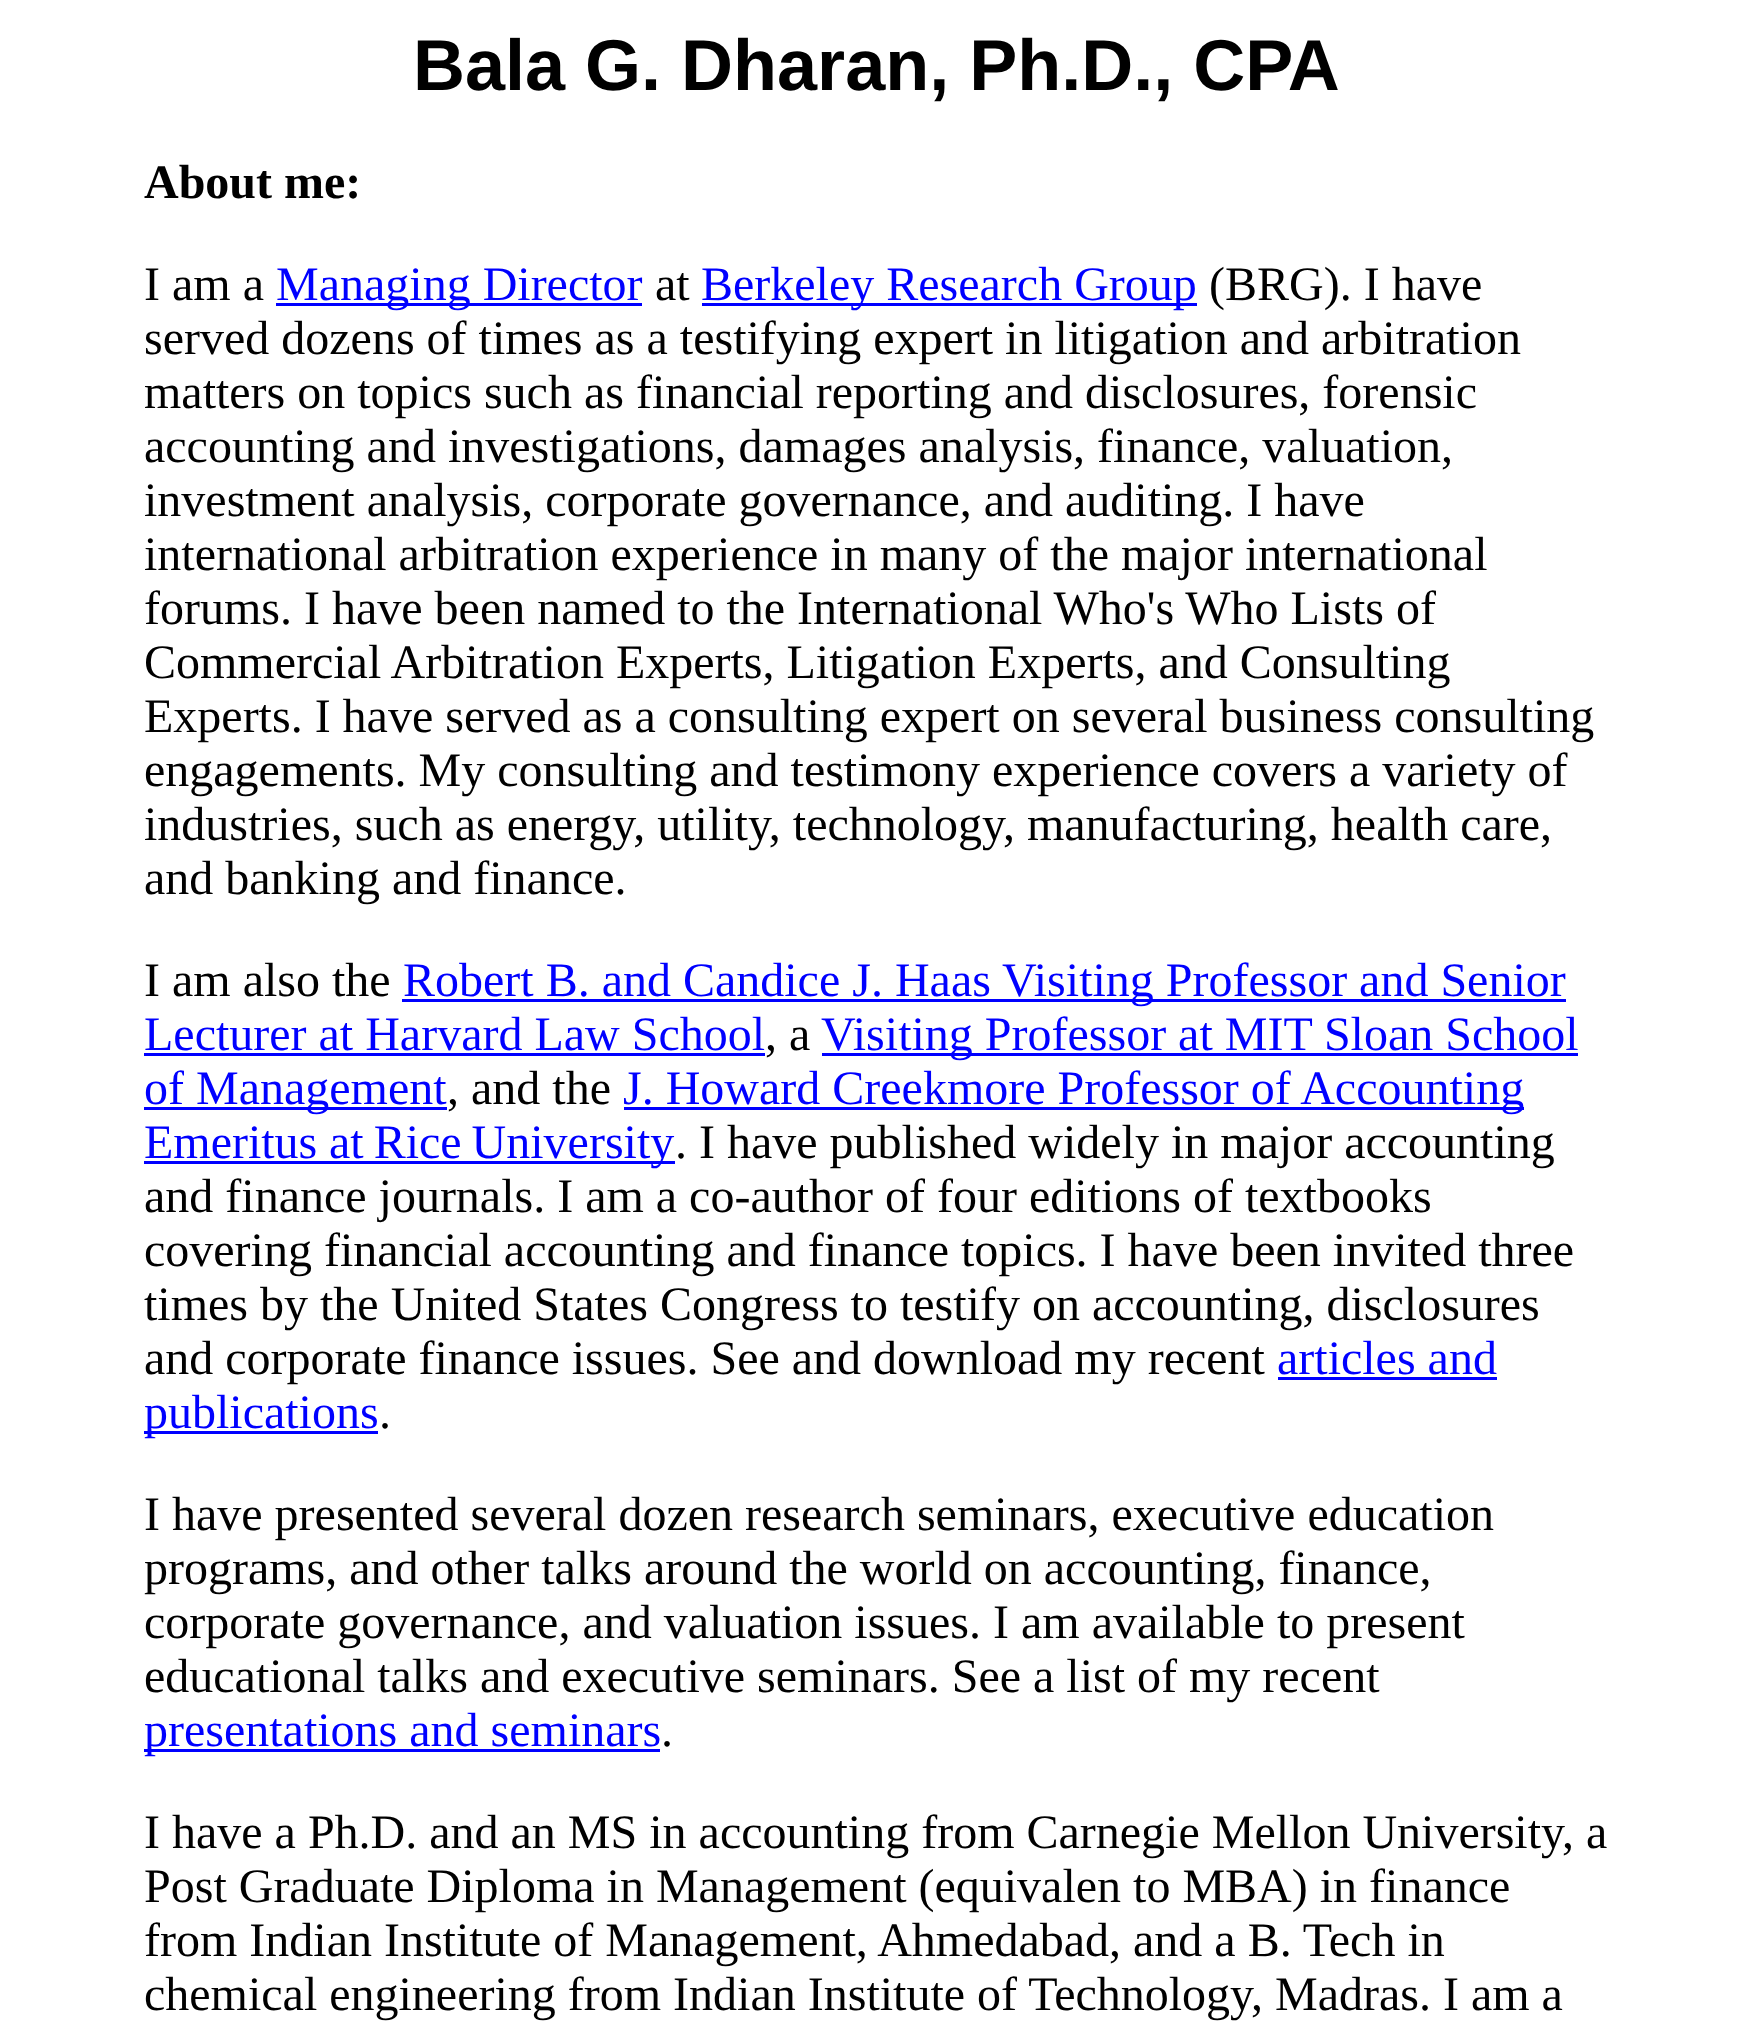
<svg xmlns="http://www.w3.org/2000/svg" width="1751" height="2044">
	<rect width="100%" height="100%" fill="#FFFFFF" />
	<text x="413" y="90" font-family="Liberation Sans" font-size="72" font-weight="700" fill="#000000">Bala G. Dharan, Ph.D., CPA</text>
	<text x="144" y="198" font-family="Liberation Serif" font-size="48" font-weight="700" fill="#000000">About me:</text>
	<text x="144" y="300" font-family="Liberation Serif" font-size="48" fill="#000000">I am a</text>
	<rect x="276" y="303" width="366" height="3" fill="#0000FF" />
	<text x="276" y="300" font-family="Liberation Serif" font-size="48" fill="#0000FF">Managing Director</text>
	<text x="655" y="300" font-family="Liberation Serif" font-size="48" fill="#000000">at</text>
	<rect x="702" y="303" width="495" height="3" fill="#0000FF" />
	<text x="701" y="300" font-family="Liberation Serif" font-size="48" fill="#0000FF">Berkeley Research Group</text>
	<g font-family="Liberation Serif" font-size="48" fill="#000000">
		<text x="1209" y="300">(BRG). I have</text>
		<text x="144" y="354">served dozens of times as a testifying expert in litigation and arbitration</text>
		<text x="144" y="408">matters on topics such as financial reporting and disclosures, forensic</text>
		<text x="144" y="462">accounting and investigations, damages analysis, finance, valuation,</text>
		<text x="144" y="516">investment analysis, corporate governance, and auditing. I have</text>
		<text x="144" y="570">international arbitration experience in many of the major international</text>
		<text x="144" y="624">forums. I have been named to the International Who's Who Lists of</text>
		<text x="144" y="678">Commercial Arbitration Experts, Litigation Experts, and Consulting</text>
		<text x="144" y="732">Experts. I have served as a consulting expert on several business consulting</text>
		<text x="144" y="786">engagements. My consulting and testimony experience covers a variety of</text>
		<text x="144" y="840">industries, such as energy, utility, technology, manufacturing, health care,</text>
		<text x="144" y="894">and banking and finance.</text>
		<text x="144" y="996">I am also the</text>
	</g>
	<rect x="402" y="999" width="1164" height="3" fill="#0000FF" />
	<g font-family="Liberation Serif" font-size="48" fill="#0000FF">
		<text x="403" y="996">Robert B. and Candice J. Haas Visiting Professor and Senior</text>
		<text x="144" y="1050">Lecturer at Harvard Law School</text>
	</g>
	<rect x="144" y="1053" width="621" height="3" fill="#0000FF" />
	<text x="765" y="1050" font-family="Liberation Serif" font-size="48" fill="#000000">, a</text>
	<rect x="822" y="1053" width="756" height="3" fill="#0000FF" />
	<text x="821" y="1050" font-family="Liberation Serif" font-size="48" fill="#0000FF">Visiting Professor at MIT Sloan School</text>
	<rect x="144" y="1107" width="303" height="3" fill="#0000FF" />
	<text x="144" y="1104" font-family="Liberation Serif" font-size="48" fill="#0000FF">of Management</text>
	<text x="447" y="1104" font-family="Liberation Serif" font-size="48" fill="#000000">, and the</text>
	<rect x="624" y="1107" width="900" height="3" fill="#0000FF" />
	<g font-family="Liberation Serif" font-size="48" fill="#0000FF">
		<text x="623" y="1104">J. Howard Creekmore Professor of Accounting</text>
		<text x="144" y="1158">Emeritus</text>
	</g>
	<rect x="144" y="1161" width="531" height="3" fill="#0000FF" />
	<text x="329" y="1158" word-spacing="-2" font-family="Liberation Serif" font-size="48" fill="#0000FF">at Rice University</text>
	<g font-family="Liberation Serif" font-size="48" fill="#000000">
		<text x="675" y="1158">. I have published widely in major accounting</text>
		<text x="144" y="1212">and finance journals. I am a co-author of four editions of textbooks</text>
		<text x="144" y="1266">covering financial accounting and finance topics. I have been invited three</text>
		<text x="144" y="1320">times by the United States Congress to testify on accounting, disclosures</text>
		<text x="144" y="1374">and corporate finance issues. See and download my recent</text>
	</g>
	<text x="1277" y="1374" font-family="Liberation Serif" font-size="48" fill="#0000FF">articles and</text>
	<rect x="1278" y="1377" width="219" height="3" fill="#0000FF" />
	<rect x="144" y="1431" width="234" height="3" fill="#0000FF" />
	<text x="144" y="1428" font-family="Liberation Serif" font-size="48" fill="#0000FF">publications</text>
	<g font-family="Liberation Serif" font-size="48" fill="#000000">
		<text x="379" y="1428">.</text>
		<text x="144" y="1530">I have presented several dozen research seminars, executive education</text>
		<text x="144" y="1584">programs, and other talks around the world on accounting, finance,</text>
		<text x="144" y="1638">corporate governance, and valuation issues. I am available to present</text>
		<text x="144" y="1692">educational talks and executive seminars. See a list of my recent</text>
	</g>
	<rect x="144" y="1749" width="516" height="3" fill="#0000FF" />
	<text x="144" y="1746" font-family="Liberation Serif" font-size="48" fill="#0000FF">presentations and seminars</text>
	<g font-family="Liberation Serif" font-size="48" fill="#000000">
		<text x="661" y="1746">.</text>
		<text x="144" y="1848">I have a Ph.D. and an MS in accounting from Carnegie Mellon University, a</text>
		<text x="144" y="1902">Post Graduate Diploma in Management (equivalen to MBA) in finance</text>
		<text x="144" y="1956">from Indian Institute of Management, Ahmedabad, and a B. Tech in</text>
		<text x="144" y="2010">chemical engineering from Indian Institute of Technology, Madras. I am a</text>
	</g>
</svg>
